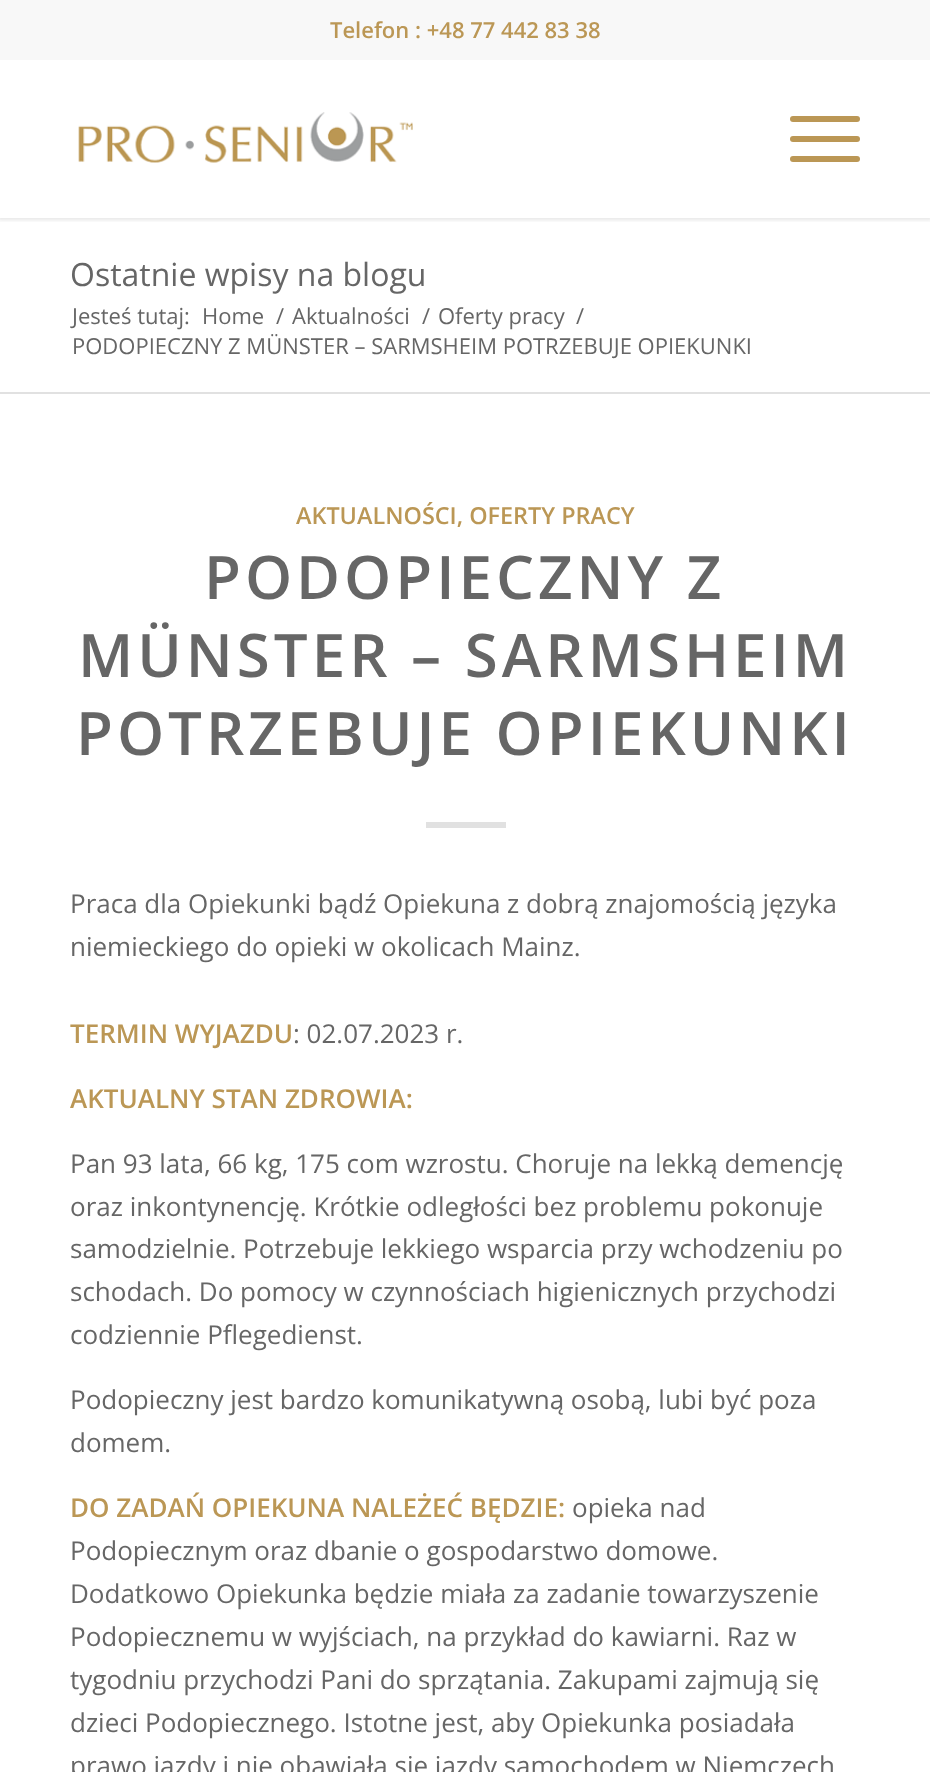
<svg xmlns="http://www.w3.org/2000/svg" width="930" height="1772">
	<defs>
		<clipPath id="clip1"><rect x="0" y="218" width="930" height="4" /></clipPath>
	</defs>
	<rect width="100%" height="100%" fill="#FFFFFF" />
	<g clip-path="url(#clip1)">
		<rect x="-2" y="-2" width="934" height="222" fill="#000000" fill-opacity="0.1" filter="blur(2px)" />
	</g>
	<rect x="0" y="0" width="930" height="60" fill="#F8F8F8" />
	<text x="330" y="38" font-family="Open Sans" font-size="22" font-weight="600" fill="#BB9755">Telefon : +48 77 442 83 38</text>
	<image x="78" y="112" width="335" height="51" href="assets/img1.png" />
	<rect x="790" y="136" width="70" height="6" rx="3" fill="#BB9755" />
	<rect x="790" y="116" width="70" height="6" rx="3" fill="#BB9755" />
	<rect x="790" y="156" width="70" height="6" rx="3" fill="#BB9755" />
	<text x="70" y="286" font-family="Open Sans" font-size="32" fill="#666666">Ostatnie wpisy na blogu</text>
	<g font-family="Open Sans" font-size="22" fill="#666666">
		<text x="72" y="324">Jesteś tutaj:</text>
		<text x="202" y="324">Home</text>
		<text x="276" y="324">/</text>
		<text x="292" y="324">Aktualności</text>
		<text x="422" y="324">/</text>
		<text x="438" y="324">Oferty pracy</text>
		<text x="576" y="324">/</text>
		<text x="72" y="354">PODOPIECZNY Z MÜNSTER – SARMSHEIM POTRZEBUJE OPIEKUNKI</text>
	</g>
	<rect x="0" y="392" width="930" height="2" fill="#E1E1E1" />
	<text x="296" y="524" font-family="Open Sans" font-size="23.4" font-weight="600" fill="#BB9755">AKTUALNOŚCI, OFERTY PRACY</text>
	<g font-family="Open Sans" font-size="60" font-weight="600" letter-spacing="4" fill="#666666">
		<text x="204" y="599">PODOPIECZNY Z</text>
		<text x="78" y="677">MÜNSTER – SARMSHEIM</text>
		<text x="76" y="755">POTRZEBUJE OPIEKUNKI</text>
	</g>
	<rect x="426" y="822" width="80" height="6" fill="#E1E1E1" />
	<g font-family="Open Sans" font-size="26" fill="#666666">
		<text x="70" y="913">Praca dla Opiekunki bądź Opiekuna z dobrą znajomością języka</text>
		<text x="70" y="956">niemieckiego do opieki w okolicach Mainz.</text>
	</g>
	<text x="70" y="1043" font-family="Open Sans" font-size="26" font-weight="600" fill="#BB9755">TERMIN WYJAZDU</text>
	<text x="293" y="1043" font-family="Open Sans" font-size="26" fill="#666666">: 02.07.2023 r.</text>
	<text x="70" y="1108" font-family="Open Sans" font-size="26" font-weight="600" fill="#BB9755">AKTUALNY STAN ZDROWIA:</text>
	<g font-family="Open Sans" font-size="26" fill="#666666">
		<text x="70" y="1173">Pan 93 lata, 66 kg, 175 com wzrostu. Choruje na lekką demencję</text>
		<text x="70" y="1216">oraz inkontynencję. Krótkie odległości bez problemu pokonuje</text>
		<text x="70" y="1258">samodzielnie. Potrzebuje lekkiego wsparcia przy wchodzeniu po</text>
		<text x="70" y="1301">schodach. Do pomocy w czynnościach higienicznych przychodzi</text>
		<text x="70" y="1344">codziennie Pflegedienst.</text>
		<text x="70" y="1409">Podopieczny jest bardzo komunikatywną osobą, lubi być poza</text>
		<text x="70" y="1452">domem.</text>
	</g>
	<text x="70" y="1517" font-family="Open Sans" font-size="26" font-weight="600" fill="#BB9755">DO ZADAŃ OPIEKUNA NALEŻEĆ BĘDZIE:</text>
	<g font-family="Open Sans" font-size="26" fill="#666666">
		<text x="572" y="1517">opieka nad</text>
		<text x="70" y="1560">Podopiecznym oraz dbanie o gospodarstwo domowe.</text>
		<text x="70" y="1603">Dodatkowo Opiekunka będzie miała za zadanie towarzyszenie</text>
		<text x="70" y="1646">Podopiecznemu w wyjściach, na przykład do kawiarni. Raz w</text>
		<text x="70" y="1689">tygodniu przychodzi Pani do sprzątania. Zakupami zajmują się</text>
		<text x="70" y="1732">dzieci Podopiecznego. Istotne jest, aby Opiekunka posiadała</text>
		<text x="70" y="1775">prawo jazdy i nie obawiała się jazdy samochodem w Niemczech</text>
	</g>
</svg>
